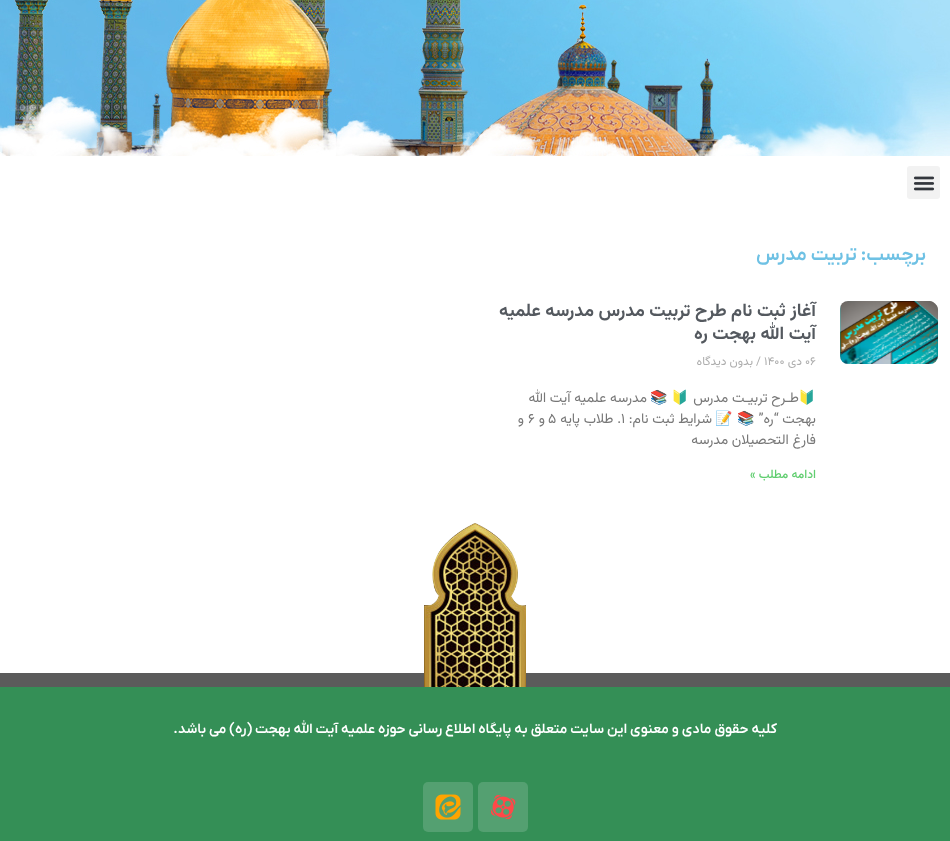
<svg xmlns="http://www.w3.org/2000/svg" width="950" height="841">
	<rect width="100%" height="100%" fill="#FFFFFF" />
	<image x="0" y="0" width="950" height="156" href="assets/img1.png" />
	<rect x="907" y="166" width="33" height="33" rx="3" fill="#F2F2F2" />
	<image x="913" y="176" width="22" height="15" href="assets/img2.png" />
	<text x="926" y="260" font-family="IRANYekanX" font-size="19" font-weight="600" direction="rtl" fill="#6EC1E4">برچسب: تربیت مدرس</text>
	<image x="840" y="301" width="98" height="63" href="assets/img3.png" />
	<g font-family="Vazirmatn" font-size="18" font-weight="700" direction="rtl" fill="#54595F">
		<text x="816" y="316">آغاز ثبت نام طرح تربیت مدرس مدرسه علمیه</text>
		<text x="816" y="339">آیت الله بهجت ره</text>
	</g>
	<text x="805" y="365" font-family="Vazirmatn" font-size="12" fill="#ADADAD">۰۶</text>
	<text x="802" y="365" font-family="Vazirmatn" font-size="12" direction="rtl" fill="#ADADAD">دی</text>
	<g font-family="Vazirmatn" font-size="12" fill="#ADADAD">
		<text x="764" y="365">۱۴۰۰</text>
		<text x="756" y="365">/</text>
	</g>
	<text x="753" y="365" font-family="Vazirmatn" font-size="12" direction="rtl" fill="#ADADAD">بدون دیدگاه</text>
	<text x="816" y="402" font-family="Noto Color Emoji" font-size="14" direction="rtl" fill="#777777">🔰</text>
	<text x="799" y="402" font-family="Vazirmatn" font-size="14" direction="rtl" fill="#777777">طـرح تربیـت مدرس</text>
	<g font-family="Noto Color Emoji" font-size="14" direction="rtl" fill="#777777">
		<text x="689" y="402">🔰</text>
		<text x="668" y="402">📚</text>
	</g>
	<g font-family="Vazirmatn" font-size="14" direction="rtl" fill="#777777">
		<text x="647" y="402">مدرسه علمیه آیت الله</text>
		<text x="816" y="423">بهجت “ره”</text>
	</g>
	<g font-family="Noto Color Emoji" font-size="14" direction="rtl" fill="#777777">
		<text x="755" y="423">📚</text>
		<text x="733" y="423">📝</text>
	</g>
	<text x="712" y="423" font-family="Vazirmatn" font-size="14" direction="rtl" fill="#777777">شرایط ثبت نام:</text>
	<text x="621" y="423" font-family="Vazirmatn" font-size="14" fill="#777777">۱</text>
	<text x="621" y="423" font-family="Vazirmatn" font-size="14" direction="rtl" fill="#777777">. طلاب پایه</text>
	<text x="548" y="423" font-family="Vazirmatn" font-size="14" fill="#777777">۵</text>
	<text x="545" y="423" font-family="Vazirmatn" font-size="14" direction="rtl" fill="#777777">و</text>
	<text x="528" y="423" font-family="Vazirmatn" font-size="14" fill="#777777">۶</text>
	<g font-family="Vazirmatn" font-size="14" direction="rtl" fill="#777777">
		<text x="524" y="423">و</text>
		<text x="816" y="444">فارغ التحصیلان مدرسه</text>
	</g>
	<text x="816" y="478" font-family="Vazirmatn" font-size="12" font-weight="500" direction="rtl" fill="#61CE70">ادامه مطلب »</text>
	<rect x="0" y="673" width="950" height="14" fill="#5B5B5B" />
	<image x="424" y="523" width="102" height="164" href="assets/img4.png" />
	<rect x="0" y="687" width="950" height="154" fill="#348F56" />
	<text x="777" y="733" font-family="IRANYekanX" font-size="14" font-weight="600" direction="rtl" fill="#FFFFFF">کلیه حقوق مادی و معنوی این سایت متعلق به پایگاه اطلاع رسانی حوزه علمیه آیت الله بهجت (ره) می باشد.</text>
	<rect x="478" y="782" width="50" height="50" rx="5" fill="#54A071" />
	<image x="490" y="795" width="26" height="25" href="assets/img5.png" />
	<rect x="423" y="782" width="50" height="50" rx="5" fill="#54A071" />
	<image x="435" y="794" width="26" height="26" href="assets/img6.png" />
</svg>
